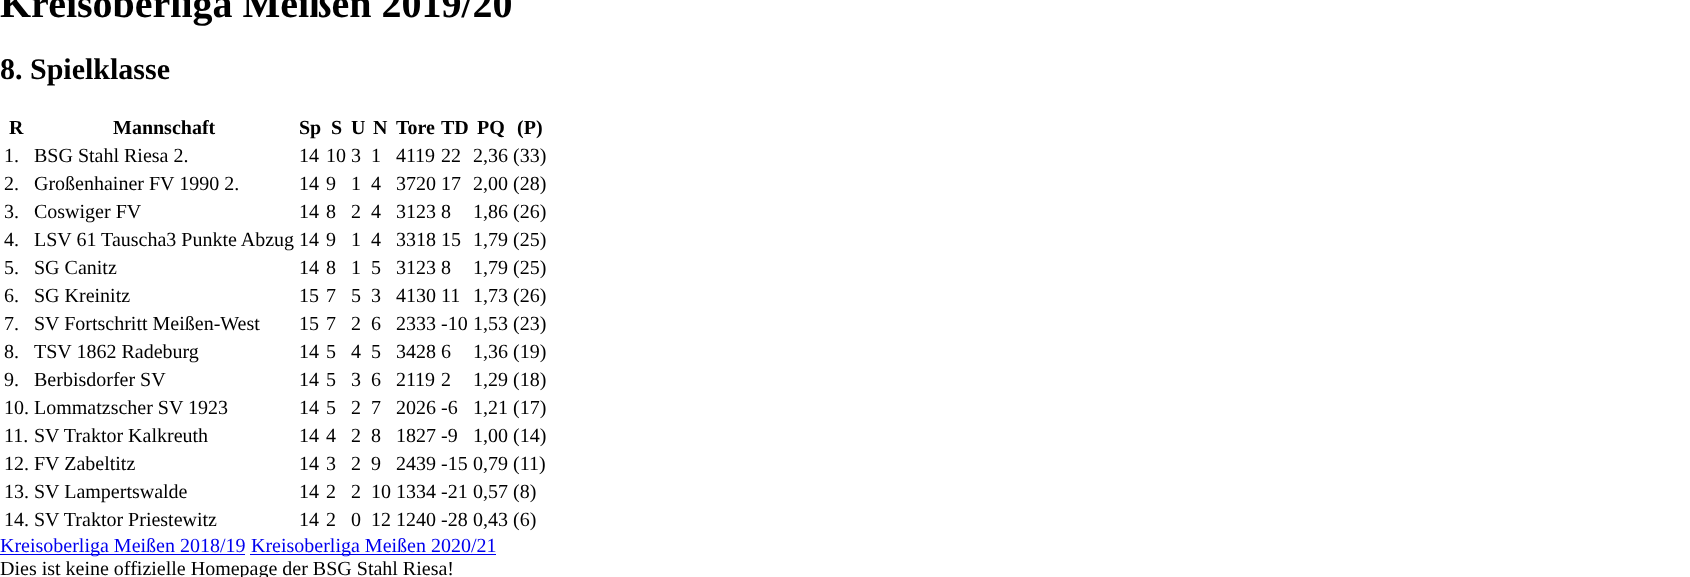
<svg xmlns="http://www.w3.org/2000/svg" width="1690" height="577">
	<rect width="100%" height="100%" fill="#FFFFFF" />
	<text x="0" y="17" font-family="Liberation Serif" font-size="40" font-weight="700" fill="#000000">Kreisoberliga Meißen 2019/20</text>
	<text x="0" y="79" font-family="Liberation Serif" font-size="30" font-weight="700" fill="#000000">8. Spielklasse</text>
	<g font-family="Liberation Serif" font-size="20" font-weight="700" fill="#000000">
		<text x="9" y="134">R</text>
		<text x="113" y="134">Mannschaft</text>
		<text x="299" y="134">Sp</text>
		<text x="331" y="134">S</text>
		<text x="351" y="134">U</text>
		<text x="373" y="134">N</text>
		<text x="396" y="134">Tore</text>
		<text x="441" y="134">TD</text>
		<text x="477" y="134">PQ</text>
		<text x="517" y="134">(P)</text>
	</g>
	<g font-family="Liberation Serif" font-size="20" fill="#000000">
		<text x="4" y="162">1.</text>
		<text x="34" y="162">BSG Stahl Riesa 2.</text>
		<text x="299" y="162">14</text>
		<text x="326" y="162">10 3</text>
		<text x="371" y="162">1</text>
		<text x="396" y="162">41</text>
		<text x="415" y="162">19</text>
		<text x="441" y="162">22</text>
		<text x="473" y="162">2,36 (33)</text>
		<text x="4" y="190">2.</text>
		<text x="34" y="190">Großenhainer FV 1990 2.</text>
		<text x="299" y="190">14</text>
		<text x="326" y="190">9</text>
		<text x="351" y="190">1</text>
		<text x="371" y="190">4</text>
		<text x="396" y="190">3720 17</text>
		<text x="473" y="190">2,00 (28)</text>
		<text x="4" y="218">3.</text>
		<text x="34" y="218">Coswiger FV</text>
		<text x="299" y="218">14</text>
		<text x="326" y="218">8</text>
		<text x="351" y="218">2</text>
		<text x="371" y="218">4</text>
		<text x="396" y="218">3123 8</text>
		<text x="473" y="218">1,86 (26)</text>
		<text x="4" y="246">4.</text>
		<text x="34" y="246">LSV 61 Tauscha3 Punkte Abzug 14</text>
		<text x="326" y="246">9</text>
		<text x="351" y="246">1</text>
		<text x="371" y="246">4</text>
		<text x="396" y="246">3318 15</text>
		<text x="473" y="246">1,79 (25)</text>
		<text x="4" y="274">5.</text>
		<text x="34" y="274">SG Canitz</text>
		<text x="299" y="274">14</text>
		<text x="326" y="274">8</text>
		<text x="351" y="274">1</text>
		<text x="371" y="274">5</text>
		<text x="396" y="274">3123 8</text>
		<text x="473" y="274">1,79 (25)</text>
		<text x="4" y="302">6.</text>
		<text x="34" y="302">SG Kreinitz</text>
		<text x="299" y="302">15</text>
		<text x="326" y="302">7</text>
		<text x="351" y="302">5</text>
		<text x="371" y="302">3</text>
		<text x="396" y="302">4130 11</text>
		<text x="473" y="302">1,73 (26)</text>
		<text x="4" y="330">7.</text>
		<text x="34" y="330">SV Fortschritt Meißen-West</text>
		<text x="299" y="330">15</text>
		<text x="326" y="330">7</text>
		<text x="351" y="330">2</text>
		<text x="371" y="330">6</text>
		<text x="396" y="330">2333 -10</text>
		<text x="473" y="330">1,53 (23)</text>
		<text x="4" y="358">8.</text>
		<text x="34" y="358">TSV 1862 Radeburg</text>
		<text x="299" y="358">14</text>
		<text x="326" y="358">5</text>
		<text x="351" y="358">4</text>
		<text x="371" y="358">5</text>
		<text x="396" y="358">3428 6</text>
		<text x="473" y="358">1,36 (19)</text>
		<text x="4" y="386">9.</text>
		<text x="34" y="386">Berbisdorfer SV</text>
		<text x="299" y="386">14</text>
		<text x="326" y="386">5</text>
		<text x="351" y="386">3</text>
		<text x="371" y="386">6</text>
		<text x="396" y="386">21</text>
		<text x="415" y="386">19</text>
		<text x="441" y="386">2</text>
		<text x="473" y="386">1,29 (18)</text>
		<text x="4" y="414">10. Lommatzscher SV 1923</text>
		<text x="299" y="414">14</text>
		<text x="326" y="414">5</text>
		<text x="351" y="414">2</text>
		<text x="371" y="414">7</text>
		<text x="396" y="414">2026 -6</text>
		<text x="473" y="414">1,21 (17)</text>
		<text x="4" y="442">11.</text>
		<text x="34" y="442">SV Traktor Kalkreuth</text>
		<text x="299" y="442">14</text>
		<text x="326" y="442">4</text>
		<text x="351" y="442">2</text>
		<text x="371" y="442">8</text>
		<text x="396" y="442">1827 -9</text>
		<text x="473" y="442">1,00 (14)</text>
		<text x="4" y="470">12. FV Zabeltitz</text>
		<text x="299" y="470">14</text>
		<text x="326" y="470">3</text>
		<text x="351" y="470">2</text>
		<text x="371" y="470">9</text>
		<text x="396" y="470">2439 -15</text>
		<text x="473" y="470">0,79 (11)</text>
		<text x="4" y="498">13. SV Lampertswalde</text>
		<text x="299" y="498">14</text>
		<text x="326" y="498">2</text>
		<text x="351" y="498">2</text>
		<text x="371" y="498">10 1334 -21</text>
		<text x="473" y="498">0,57 (8)</text>
		<text x="4" y="526">14. SV Traktor Priestewitz</text>
		<text x="299" y="526">14</text>
		<text x="326" y="526">2</text>
		<text x="351" y="526">0</text>
		<text x="371" y="526">12 1240 -28</text>
		<text x="473" y="526">0,43 (6)</text>
	</g>
	<rect x="0" y="554" width="245" height="1" fill="#0000EE" />
	<text x="0" y="552" font-family="Liberation Serif" font-size="20" fill="#0000EE">Kreisoberliga Meißen 2018/19</text>
	<rect x="250" y="554" width="246" height="1" fill="#0000EE" />
	<text x="251" y="552" font-family="Liberation Serif" font-size="20" fill="#0000EE">Kreisoberliga Meißen 2020/21</text>
	<text x="0" y="575" font-family="Liberation Serif" font-size="20" fill="#000000">Dies ist keine offizielle Homepage der BSG Stahl Riesa!</text>
</svg>
